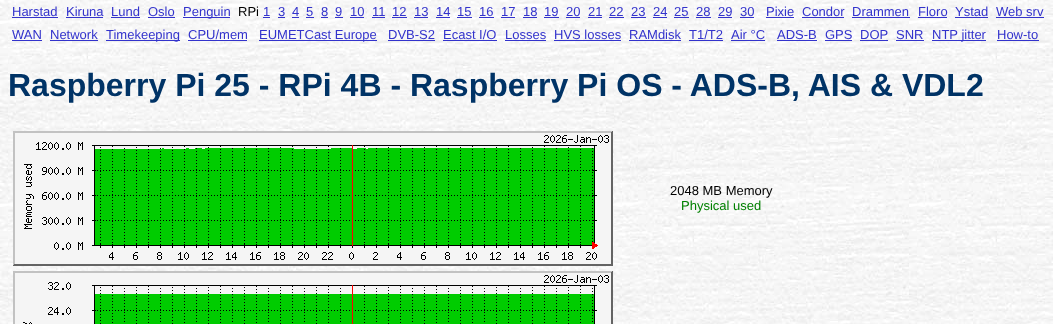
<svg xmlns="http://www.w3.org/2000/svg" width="1053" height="324">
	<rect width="100%" height="100%" fill="#FFFFFF" />
	<image x="0" y="0" width="1053" height="324" href="assets/img1.png" />
	<text x="12" y="16" font-family="Liberation Sans" font-size="13" fill="#3333CC">Harstad</text>
	<rect x="12" y="17" width="46" height="1" fill="#3333CC" />
	<text x="66" y="16" font-family="Liberation Sans" font-size="13" fill="#3333CC">Kiruna</text>
	<rect x="66" y="17" width="37" height="1" fill="#3333CC" />
	<text x="111" y="16" font-family="Liberation Sans" font-size="13" fill="#3333CC">Lund</text>
	<rect x="111" y="17" width="29" height="1" fill="#3333CC" />
	<text x="148" y="16" font-family="Liberation Sans" font-size="13" fill="#3333CC">Oslo</text>
	<rect x="148" y="17" width="27" height="1" fill="#3333CC" />
	<rect x="183" y="17" width="47" height="1" fill="#3333CC" />
	<text x="183" y="16" font-family="Liberation Sans" font-size="13" fill="#3333CC">Penguin</text>
	<text x="238" y="16" font-family="Liberation Sans" font-size="13" fill="#000000">RPi</text>
	<text x="263" y="16" font-family="Liberation Sans" font-size="13" fill="#3333CC">1</text>
	<rect x="263" y="17" width="7" height="1" fill="#3333CC" />
	<text x="278" y="16" font-family="Liberation Sans" font-size="13" fill="#3333CC">3</text>
	<rect x="278" y="17" width="7" height="1" fill="#3333CC" />
	<text x="292" y="16" font-family="Liberation Sans" font-size="13" fill="#3333CC">4</text>
	<rect x="292" y="17" width="7" height="1" fill="#3333CC" />
	<text x="306" y="16" font-family="Liberation Sans" font-size="13" fill="#3333CC">5</text>
	<rect x="306" y="17" width="8" height="1" fill="#3333CC" />
	<text x="321" y="16" font-family="Liberation Sans" font-size="13" fill="#3333CC">8</text>
	<rect x="321" y="17" width="7" height="1" fill="#3333CC" />
	<text x="335" y="16" font-family="Liberation Sans" font-size="13" fill="#3333CC">9</text>
	<rect x="335" y="17" width="8" height="1" fill="#3333CC" />
	<text x="350" y="16" font-family="Liberation Sans" font-size="13" fill="#3333CC">10</text>
	<rect x="350" y="17" width="14" height="1" fill="#3333CC" />
	<text x="372" y="16" font-family="Liberation Sans" font-size="13" fill="#3333CC">11</text>
	<rect x="372" y="17" width="13" height="1" fill="#3333CC" />
	<text x="392" y="16" font-family="Liberation Sans" font-size="13" fill="#3333CC">12</text>
	<rect x="392" y="17" width="15" height="1" fill="#3333CC" />
	<text x="414" y="16" font-family="Liberation Sans" font-size="13" fill="#3333CC">13</text>
	<rect x="414" y="17" width="14" height="1" fill="#3333CC" />
	<text x="436" y="16" font-family="Liberation Sans" font-size="13" fill="#3333CC">14</text>
	<rect x="436" y="17" width="14" height="1" fill="#3333CC" />
	<text x="457" y="16" font-family="Liberation Sans" font-size="13" fill="#3333CC">15</text>
	<rect x="457" y="17" width="15" height="1" fill="#3333CC" />
	<text x="479" y="16" font-family="Liberation Sans" font-size="13" fill="#3333CC">16</text>
	<rect x="479" y="17" width="15" height="1" fill="#3333CC" />
	<text x="501" y="16" font-family="Liberation Sans" font-size="13" fill="#3333CC">17</text>
	<rect x="501" y="17" width="14" height="1" fill="#3333CC" />
	<text x="523" y="16" font-family="Liberation Sans" font-size="13" fill="#3333CC">18</text>
	<rect x="523" y="17" width="14" height="1" fill="#3333CC" />
	<text x="544" y="16" font-family="Liberation Sans" font-size="13" fill="#3333CC">19</text>
	<rect x="544" y="17" width="15" height="1" fill="#3333CC" />
	<text x="566" y="16" font-family="Liberation Sans" font-size="13" fill="#3333CC">20</text>
	<rect x="566" y="17" width="14" height="1" fill="#3333CC" />
	<text x="588" y="16" font-family="Liberation Sans" font-size="13" fill="#3333CC">21</text>
	<rect x="588" y="17" width="14" height="1" fill="#3333CC" />
	<text x="609" y="16" font-family="Liberation Sans" font-size="13" fill="#3333CC">22</text>
	<rect x="609" y="17" width="15" height="1" fill="#3333CC" />
	<text x="631" y="16" font-family="Liberation Sans" font-size="13" fill="#3333CC">23</text>
	<rect x="631" y="17" width="15" height="1" fill="#3333CC" />
	<text x="653" y="16" font-family="Liberation Sans" font-size="13" fill="#3333CC">24</text>
	<rect x="653" y="17" width="14" height="1" fill="#3333CC" />
	<text x="674" y="16" font-family="Liberation Sans" font-size="13" fill="#3333CC">25</text>
	<rect x="674" y="17" width="15" height="1" fill="#3333CC" />
	<text x="696" y="16" font-family="Liberation Sans" font-size="13" fill="#3333CC">28</text>
	<rect x="696" y="17" width="15" height="1" fill="#3333CC" />
	<text x="718" y="16" font-family="Liberation Sans" font-size="13" fill="#3333CC">29</text>
	<rect x="718" y="17" width="14" height="1" fill="#3333CC" />
	<text x="740" y="16" font-family="Liberation Sans" font-size="13" fill="#3333CC">30</text>
	<rect x="740" y="17" width="14" height="1" fill="#3333CC" />
	<text x="766" y="16" font-family="Liberation Sans" font-size="13" fill="#3333CC">Pixie</text>
	<rect x="766" y="17" width="28" height="1" fill="#3333CC" />
	<text x="802" y="16" font-family="Liberation Sans" font-size="13" fill="#3333CC">Condor</text>
	<rect x="802" y="17" width="42" height="1" fill="#3333CC" />
	<text x="852" y="16" font-family="Liberation Sans" font-size="13" fill="#3333CC">Drammen</text>
	<rect x="852" y="17" width="58" height="1" fill="#3333CC" />
	<text x="918" y="16" font-family="Liberation Sans" font-size="13" fill="#3333CC">Floro</text>
	<rect x="918" y="17" width="29" height="1" fill="#3333CC" />
	<text x="955" y="16" font-family="Liberation Sans" font-size="13" fill="#3333CC">Ystad</text>
	<rect x="955" y="17" width="33" height="1" fill="#3333CC" />
	<text x="996" y="16" font-family="Liberation Sans" font-size="13" fill="#3333CC">Web srv</text>
	<rect x="996" y="17" width="48" height="1" fill="#3333CC" />
	<text x="12" y="39" font-family="Liberation Sans" font-size="13" fill="#3333CC">WAN</text>
	<rect x="12" y="40" width="30" height="1" fill="#3333CC" />
	<text x="50" y="39" font-family="Liberation Sans" font-size="13" fill="#3333CC">Network</text>
	<rect x="50" y="40" width="48" height="1" fill="#3333CC" />
	<rect x="106" y="40" width="74" height="1" fill="#3333CC" />
	<g font-family="Liberation Sans" font-size="13" fill="#3333CC">
		<text x="106" y="39">Timekeeping</text>
		<text x="188" y="39">CPU/mem</text>
	</g>
	<rect x="188" y="40" width="59" height="1" fill="#3333CC" />
	<rect x="259" y="40" width="118" height="1" fill="#3333CC" />
	<g font-family="Liberation Sans" font-size="13" fill="#3333CC">
		<text x="259" y="39">EUMETCast Europe</text>
		<text x="388" y="39">DVB-S2</text>
	</g>
	<rect x="388" y="40" width="47" height="1" fill="#3333CC" />
	<text x="443" y="39" font-family="Liberation Sans" font-size="13" fill="#3333CC">Ecast I/O</text>
	<rect x="443" y="40" width="54" height="1" fill="#3333CC" />
	<text x="505" y="39" font-family="Liberation Sans" font-size="13" fill="#3333CC">Losses</text>
	<rect x="505" y="40" width="41" height="1" fill="#3333CC" />
	<text x="554" y="39" font-family="Liberation Sans" font-size="13" fill="#3333CC">HVS losses</text>
	<rect x="554" y="40" width="67" height="1" fill="#3333CC" />
	<text x="629" y="39" font-family="Liberation Sans" font-size="13" fill="#3333CC">RAMdisk</text>
	<rect x="629" y="40" width="52" height="1" fill="#3333CC" />
	<text x="689" y="39" font-family="Liberation Sans" font-size="13" fill="#3333CC">T1/T2</text>
	<rect x="689" y="40" width="34" height="1" fill="#3333CC" />
	<text x="731" y="39" font-family="Liberation Sans" font-size="13" fill="#3333CC">Air °C</text>
	<rect x="731" y="40" width="34" height="1" fill="#3333CC" />
	<text x="777" y="39" font-family="Liberation Sans" font-size="13" fill="#3333CC">ADS-B</text>
	<rect x="777" y="40" width="40" height="1" fill="#3333CC" />
	<text x="825" y="39" font-family="Liberation Sans" font-size="13" fill="#3333CC">GPS</text>
	<rect x="825" y="40" width="27" height="1" fill="#3333CC" />
	<text x="860" y="39" font-family="Liberation Sans" font-size="13" fill="#3333CC">DOP</text>
	<rect x="860" y="40" width="28" height="1" fill="#3333CC" />
	<text x="896" y="39" font-family="Liberation Sans" font-size="13" fill="#3333CC">SNR</text>
	<rect x="896" y="40" width="28" height="1" fill="#3333CC" />
	<rect x="932" y="40" width="54" height="1" fill="#3333CC" />
	<g font-family="Liberation Sans" font-size="13" fill="#3333CC">
		<text x="932" y="39">NTP jitter</text>
		<text x="997" y="39">How-to</text>
	</g>
	<rect x="997" y="40" width="42" height="1" fill="#3333CC" />
	<text x="8" y="96" font-family="Liberation Sans" font-size="32" font-weight="700" fill="#003366">Raspberry Pi 25 - RPi 4B - Raspberry Pi OS - ADS-B, AIS &amp; VDL2</text>
	<image x="13" y="131" width="600" height="135" href="assets/img2.png" />
	<text x="670" y="195" font-family="Liberation Sans" font-size="13" fill="#000000">2048 MB Memory</text>
	<text x="681" y="210" font-family="Liberation Sans" font-size="13" fill="#008000">Physical used</text>
	<image x="13" y="271" width="600" height="53" href="assets/img3.png" />
</svg>
